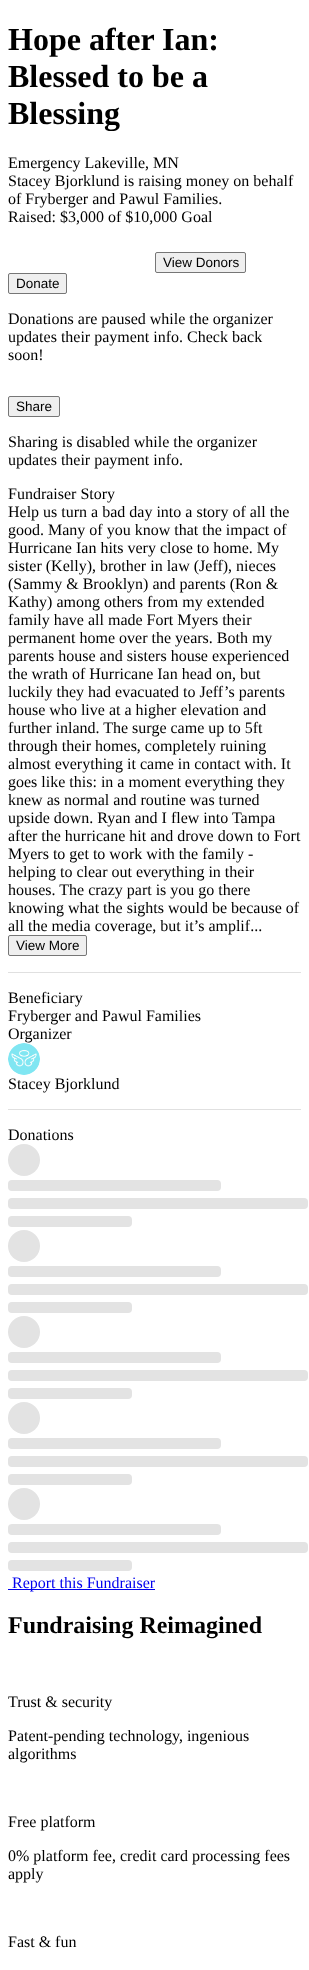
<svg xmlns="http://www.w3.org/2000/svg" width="309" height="1970">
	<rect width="100%" height="100%" fill="#FFFFFF" />
	<g font-family="Liberation Serif" font-size="32" font-weight="700" fill="#000000">
		<text x="8" y="50">Hope after Ian:</text>
		<text x="8" y="87">Blessed to be a</text>
		<text x="8" y="124">Blessing</text>
	</g>
	<g font-family="Liberation Serif" font-size="16" fill="#000000">
		<text x="8" y="168">Emergency Lakeville, MN</text>
		<text x="8" y="186">Stacey Bjorklund is raising money on behalf</text>
		<text x="8" y="204">of Fryberger and Pawul Families.</text>
		<text x="8" y="222">Raised: $3,000 of $10,000 Goal</text>
	</g>
	<rect x="155.5" y="252.5" width="90" height="20" rx="1.5" fill="#EFEFEF" stroke="#767676" />
	<text x="163" y="267" font-family="Liberation Sans" font-size="13.5" fill="#000000">View Donors</text>
	<rect x="8.5" y="273.5" width="58" height="20" rx="1.5" fill="#EFEFEF" stroke="#767676" />
	<text x="16" y="288" font-family="Liberation Sans" font-size="13.5" fill="#000000">Donate</text>
	<g font-family="Liberation Serif" font-size="16" fill="#000000">
		<text x="8" y="324">Donations are paused while the organizer</text>
		<text x="8" y="342">updates their payment info. Check back</text>
		<text x="8" y="360">soon!</text>
	</g>
	<rect x="8.5" y="396.5" width="51" height="20" rx="1.5" fill="#EFEFEF" stroke="#767676" />
	<text x="16" y="411" font-family="Liberation Sans" font-size="13.5" fill="#000000">Share</text>
	<g font-family="Liberation Serif" font-size="16" fill="#000000">
		<text x="8" y="447">Sharing is disabled while the organizer</text>
		<text x="8" y="465">updates their payment info.</text>
		<text x="8" y="499">Fundraiser Story</text>
		<text x="8" y="517">Help us turn a bad day into a story of all the</text>
		<text x="8" y="535">good. Many of you know that the impact of</text>
		<text x="8" y="553">Hurricane Ian hits very close to home. My</text>
		<text x="8" y="571">sister (Kelly), brother in law (Jeff), nieces</text>
		<text x="8" y="589">(Sammy &amp; Brooklyn) and parents (Ron &amp;</text>
		<text x="8" y="607">Kathy) among others from my extended</text>
		<text x="8" y="625">family have all made Fort Myers their</text>
		<text x="8" y="643">permanent home over the years. Both my</text>
		<text x="8" y="661">parents house and sisters house experienced</text>
		<text x="8" y="679">the wrath of Hurricane Ian head on, but</text>
		<text x="8" y="697">luckily they had evacuated to Jeff’s parents</text>
		<text x="8" y="715">house who live at a higher elevation and</text>
		<text x="8" y="733">further inland. The surge came up to 5ft</text>
		<text x="8" y="751">through their homes, completely ruining</text>
		<text x="8" y="769">almost everything it came in contact with. It</text>
		<text x="8" y="787">goes like this: in a moment everything they</text>
		<text x="8" y="805">knew as normal and routine was turned</text>
		<text x="8" y="823">upside down. Ryan and I flew into Tampa</text>
		<text x="8" y="841">after the hurricane hit and drove down to Fort</text>
		<text x="8" y="859">Myers to get to work with the family -</text>
		<text x="8" y="877">helping to clear out everything in their</text>
		<text x="8" y="895">houses. The crazy part is you go there</text>
		<text x="8" y="913">knowing what the sights would be because of</text>
		<text x="8" y="931">all the media coverage, but it’s amplif...</text>
	</g>
	<rect x="8.5" y="935.5" width="78" height="20" rx="1.5" fill="#EFEFEF" stroke="#767676" />
	<text x="16" y="950" font-family="Liberation Sans" font-size="13.5" fill="#000000">View More</text>
	<rect x="8" y="972" width="293" height="1" fill="#E0E0E0" />
	<g font-family="Liberation Serif" font-size="16" fill="#000000">
		<text x="8" y="1003">Beneficiary</text>
		<text x="8" y="1021">Fryberger and Pawul Families</text>
		<text x="8" y="1039">Organizer</text>
	</g>
	<image x="8" y="1043" width="32" height="32" href="assets/img1.png" />
	<text x="8" y="1089" font-family="Liberation Serif" font-size="16" fill="#000000">Stacey Bjorklund</text>
	<rect x="8" y="1109" width="293" height="1" fill="#E0E0E0" />
	<text x="8" y="1140" font-family="Liberation Serif" font-size="16" fill="#000000">Donations</text>
	<circle cx="24" cy="1160" r="16" fill="#E3E3E3" />
	<rect x="8" y="1180" width="213" height="11" rx="4" fill="#E3E3E3" />
	<rect x="8" y="1198" width="300" height="11" rx="4" fill="#E3E3E3" />
	<rect x="8" y="1216" width="124" height="11" rx="4" fill="#E3E3E3" />
	<circle cx="24" cy="1246" r="16" fill="#E3E3E3" />
	<rect x="8" y="1266" width="213" height="11" rx="4" fill="#E3E3E3" />
	<rect x="8" y="1284" width="300" height="11" rx="4" fill="#E3E3E3" />
	<rect x="8" y="1302" width="124" height="11" rx="4" fill="#E3E3E3" />
	<circle cx="24" cy="1332" r="16" fill="#E3E3E3" />
	<rect x="8" y="1352" width="213" height="11" rx="4" fill="#E3E3E3" />
	<rect x="8" y="1370" width="300" height="11" rx="4" fill="#E3E3E3" />
	<rect x="8" y="1388" width="124" height="11" rx="4" fill="#E3E3E3" />
	<circle cx="24" cy="1418" r="16" fill="#E3E3E3" />
	<rect x="8" y="1438" width="213" height="11" rx="4" fill="#E3E3E3" />
	<rect x="8" y="1456" width="300" height="11" rx="4" fill="#E3E3E3" />
	<rect x="8" y="1474" width="124" height="11" rx="4" fill="#E3E3E3" />
	<circle cx="24" cy="1504" r="16" fill="#E3E3E3" />
	<rect x="8" y="1524" width="213" height="11" rx="4" fill="#E3E3E3" />
	<rect x="8" y="1542" width="300" height="11" rx="4" fill="#E3E3E3" />
	<rect x="8" y="1560" width="124" height="11" rx="4" fill="#E3E3E3" />
	<rect x="8" y="1589" width="147" height="1" fill="#0000EE" />
	<text x="12" y="1588" font-family="Liberation Serif" font-size="16" fill="#0000EE">Report this Fundraiser</text>
	<text x="8" y="1633" font-family="Liberation Serif" font-size="24" font-weight="700" fill="#000000">Fundraising Reimagined</text>
	<g font-family="Liberation Serif" font-size="16" fill="#000000">
		<text x="8" y="1707">Trust &amp; security</text>
		<text x="8" y="1741">Patent-pending technology, ingenious</text>
		<text x="8" y="1759">algorithms</text>
		<text x="8" y="1827">Free platform</text>
		<text x="8" y="1861">0% platform fee, credit card processing fees</text>
		<text x="8" y="1879">apply</text>
		<text x="8" y="1947">Fast &amp; fun</text>
	</g>
</svg>
